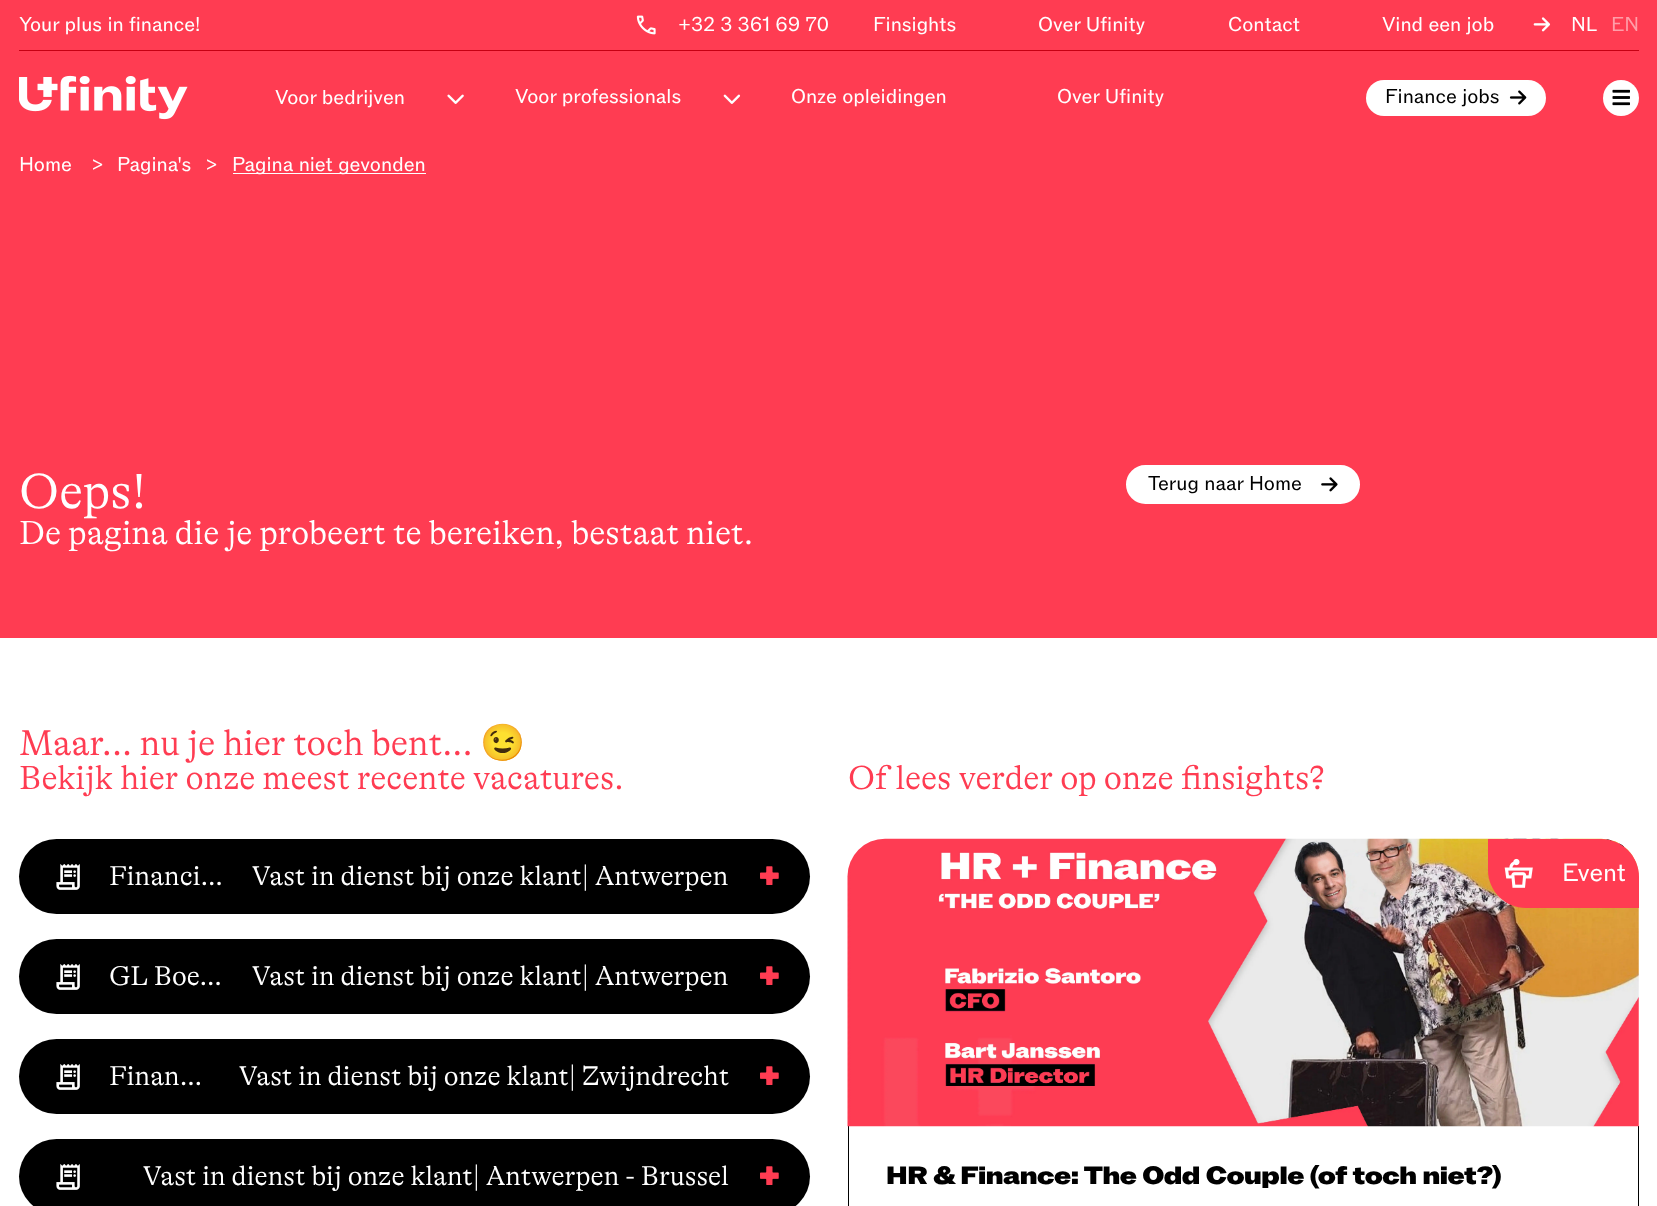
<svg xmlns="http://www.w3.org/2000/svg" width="1657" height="1206">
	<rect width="100%" height="100%" fill="#FFFFFF" />
	<rect x="0" y="0" width="1657" height="638" fill="#FF3C52" />
	<rect x="19" y="50" width="1620" height="1" fill="#C60013" />
	<text x="19" y="31" font-family="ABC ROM" font-size="20" fill="#FFFFFF">Your plus in finance!</text>
	<image x="636" y="15" width="20" height="20" href="assets/img1.png" />
	<g font-family="ABC ROM" font-size="20" fill="#FFFFFF">
		<text x="678" y="31">+32 3 361 69 70</text>
		<text x="873" y="31">Finsights</text>
		<text x="1038" y="31">Over Ufinity</text>
		<text x="1228" y="31">Contact</text>
		<text x="1382" y="31">Vind een job</text>
	</g>
	<image x="1533" y="17" width="18" height="15" href="assets/img2.png" />
	<text x="1571" y="31" font-family="ABC ROM" font-size="20" fill="#FFFFFF">NL</text>
	<text x="1611" y="31" font-family="ABC ROM" font-size="20" fill="#FF9EA9">EN</text>
	<image x="19" y="75" width="169" height="45" href="assets/img3.png" />
	<text x="275" y="104" font-family="ABC ROM" font-size="20" fill="#FFFFFF">Voor bedrijven</text>
	<image x="447" y="94" width="17" height="10" href="assets/img4.png" />
	<text x="515" y="103" font-family="ABC ROM" font-size="20" fill="#FFFFFF">Voor professionals</text>
	<image x="723" y="94" width="18" height="10" href="assets/img5.png" />
	<g font-family="ABC ROM" font-size="20" fill="#FFFFFF">
		<text x="791" y="103">Onze opleidingen</text>
		<text x="1057" y="103">Over Ufinity</text>
	</g>
	<rect x="1366" y="80" width="180" height="36" rx="18" fill="#FFFFFF" />
	<text x="1385" y="103" font-family="ABC ROM" font-size="20" fill="#000000">Finance jobs</text>
	<image x="1509" y="90" width="18" height="15" href="assets/img6.png" />
	<circle cx="1621" cy="98" r="18" fill="#FFFFFF" />
	<image x="1612" y="89" width="18" height="17" href="assets/img7.png" />
	<g font-family="ABC ROM" font-size="20" fill="#FFFFFF">
		<text x="19" y="171">Home</text>
		<text x="91" y="171">&gt;</text>
		<text x="117" y="171">Pagina's</text>
		<text x="205" y="171">&gt;</text>
	</g>
	<rect x="233" y="173" width="193" height="1" fill="#FFFFFF" />
	<text x="232" y="171" font-family="ABC ROM" font-size="20" fill="#FFFFFF">Pagina niet gevonden</text>
	<text x="19" y="508" font-family="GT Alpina" font-size="50" font-weight="300" fill="#FFFFFF">Oeps!</text>
	<text x="19" y="544" font-family="GT Alpina" font-size="33.75" font-weight="300" fill="#FFFFFF">De pagina die je probeert te bereiken, bestaat niet.</text>
	<rect x="1127.5" y="466.5" width="231" height="36" rx="18" fill="#FFFFFF" stroke="#FFFFFF" stroke-width="3" />
	<text x="1148" y="490" font-family="ABC ROM" font-size="20" fill="#000000">Terug naar Home</text>
	<image x="1321" y="477" width="17" height="15" href="assets/img8.png" />
	<text x="19" y="755" font-family="GT Alpina" font-size="36.25" font-weight="300" fill="#FF3C52">Maar... nu je hier toch bent...</text>
	<text x="480" y="755" font-family="Noto Color Emoji" font-size="36.25" fill="#FF3C52">😉</text>
	<text x="19" y="789" font-family="GT Alpina" font-size="33.75" font-weight="300" fill="#FF3C52">Bekijk hier onze meest recente vacatures.</text>
	<rect x="19" y="839" width="791" height="75" rx="37.5" fill="#000000" />
	<image x="56" y="864" width="24" height="26" href="assets/img9.png" />
	<g font-family="GT Alpina" font-size="27.5" font-weight="300" fill="#FFFFFF">
		<text x="109" y="885">Financi…</text>
		<text x="252" y="885">Vast in dienst bij onze klant| Antwerpen</text>
	</g>
	<image x="760" y="866" width="19" height="19" href="assets/img10.png" />
	<rect x="19" y="939" width="791" height="75" rx="37.5" fill="#000000" />
	<image x="56" y="964" width="24" height="26" href="assets/img9.png" />
	<g font-family="GT Alpina" font-size="27.5" font-weight="300" fill="#FFFFFF">
		<text x="109" y="985">GL Boe…</text>
		<text x="252" y="985">Vast in dienst bij onze klant| Antwerpen</text>
	</g>
	<image x="760" y="966" width="19" height="19" href="assets/img10.png" />
	<rect x="19" y="1039" width="791" height="75" rx="37.5" fill="#000000" />
	<image x="56" y="1064" width="24" height="26" href="assets/img9.png" />
	<g font-family="GT Alpina" font-size="27.5" font-weight="300" fill="#FFFFFF">
		<text x="109" y="1085">Finan…</text>
		<text x="239" y="1085">Vast in dienst bij onze klant| Zwijndrecht</text>
	</g>
	<image x="760" y="1066" width="19" height="19" href="assets/img10.png" />
	<rect x="19" y="1139" width="791" height="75" rx="37.5" fill="#000000" />
	<image x="56" y="1164" width="24" height="26" href="assets/img9.png" />
	<text x="143" y="1185" font-family="GT Alpina" font-size="27.5" font-weight="300" fill="#FFFFFF">Vast in dienst bij onze klant| Antwerpen - Brussel</text>
	<image x="760" y="1166" width="19" height="19" href="assets/img10.png" />
	<text x="848" y="789" font-family="GT Alpina" font-size="33.75" font-weight="300" fill="#FF3C52">Of lees verder op onze finsights?</text>
	<path d="M848 1126H1639V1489C1639 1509 1622 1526 1601 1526H885C864 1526 848 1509 848 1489ZM849 1126H1638V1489C1638 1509 1621 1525 1601 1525H885C865 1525 849 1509 849 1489Z" fill="#000000" fill-rule="evenodd" />
	<image x="847" y="838" width="792" height="289" href="assets/img11.png" />
	<path d="M1488 839H1601C1622 839 1639 856 1639 877V908H1526C1505 908 1488 891 1488 870Z" fill="#FF3C52" />
	<image x="1504" y="858" width="29" height="30" href="assets/img12.png" />
	<text x="1562" y="881" font-family="ABC ROM" font-size="25" fill="#FFFFFF">Event</text>
	<text x="886" y="1184" font-family="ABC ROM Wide" font-size="25" font-weight="900" letter-spacing="-0.4" fill="#000000">HR &amp; Finance: The Odd Couple (of toch niet?)</text>
</svg>
